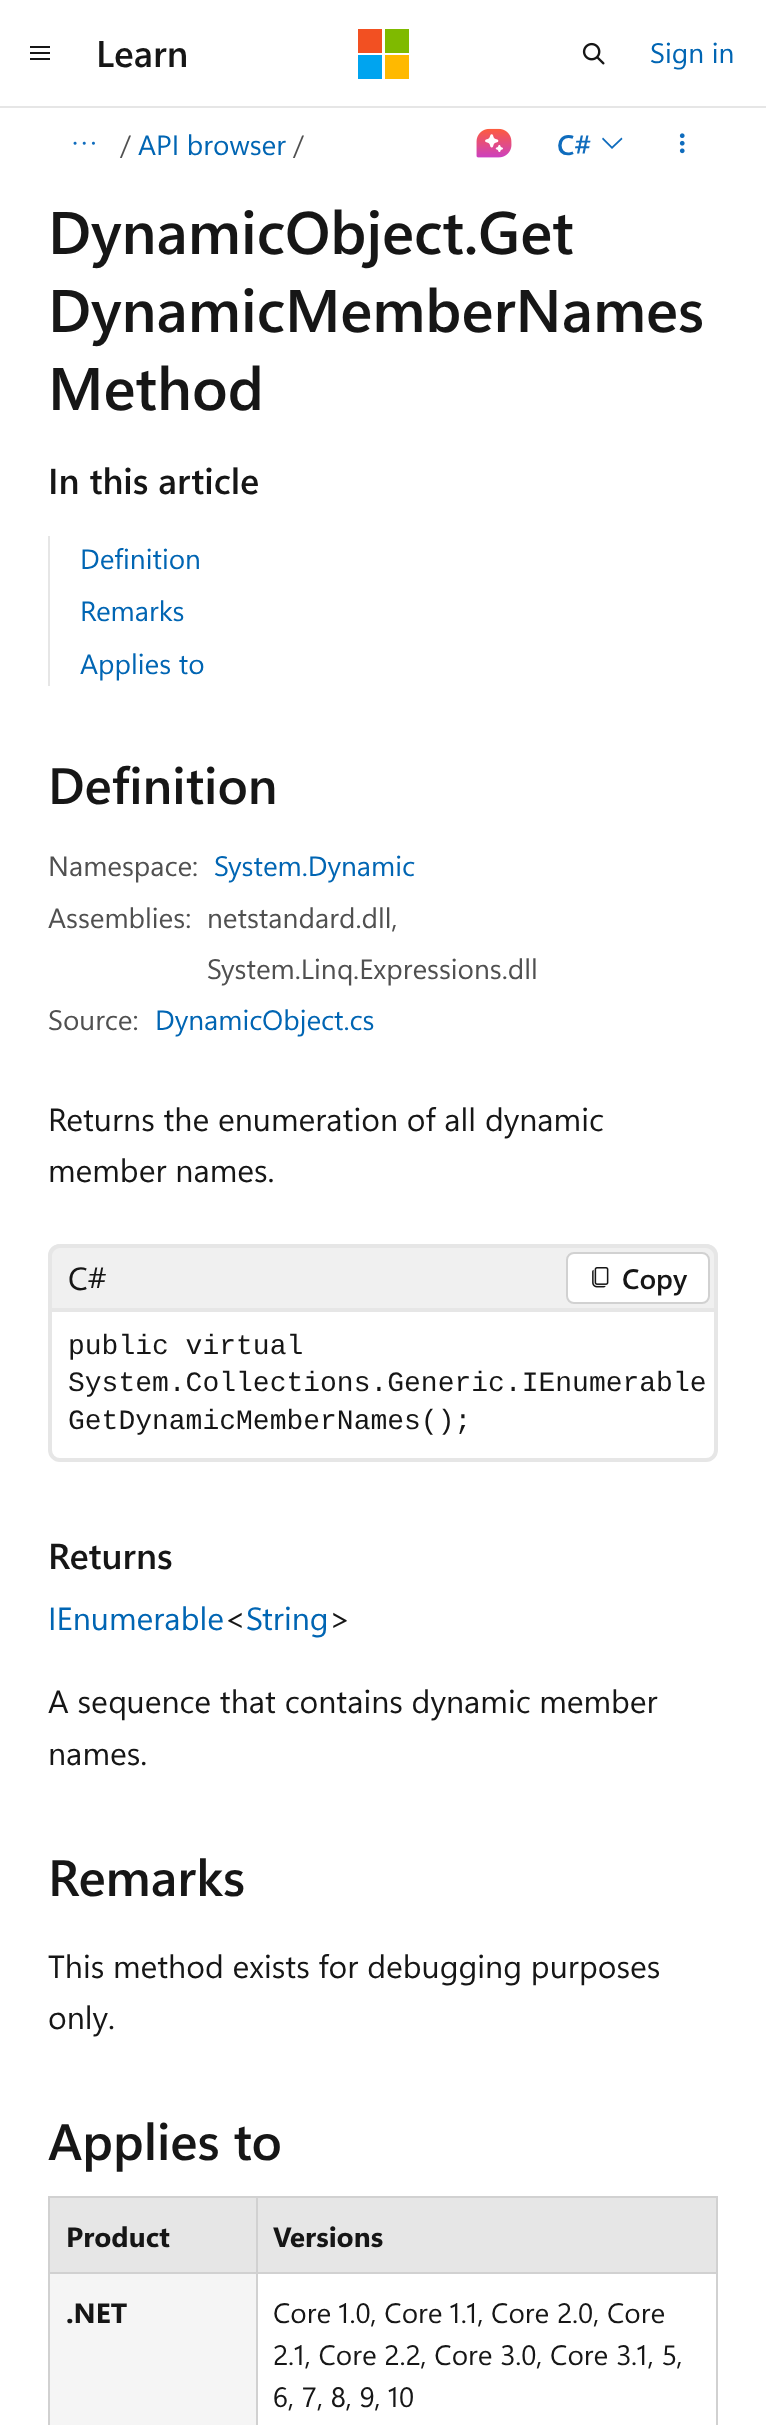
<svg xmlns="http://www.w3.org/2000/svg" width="766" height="2425">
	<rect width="100%" height="100%" fill="#FFFFFF" />
	<rect x="0" y="106" width="766" height="2" fill="#E6E6E6" />
	<image x="30" y="46" width="20" height="14" href="assets/img1.png" />
	<text x="96" y="67" font-family="Segoe UI" font-size="37" font-weight="600" fill="#161616">Learn</text>
	<rect x="358" y="29" width="24" height="24" fill="#F25022" />
	<rect x="385" y="29" width="24" height="24" fill="#7FBA00" />
	<rect x="358" y="55" width="24" height="24" fill="#00A4EF" />
	<rect x="385" y="55" width="24" height="24" fill="#FFB900" />
	<image x="582" y="42" width="23" height="23" href="assets/img2.png" />
	<text x="650" y="63" font-family="Segoe UI" font-size="28" fill="#0065B3">Sign in</text>
	<image x="73" y="141" width="22" height="4" href="assets/img3.png" />
	<text x="120" y="155" font-family="Segoe UI" font-size="28" fill="#505050">/</text>
	<text x="138" y="155" font-family="Segoe UI" font-size="28" fill="#0065B3">API browser</text>
	<text x="293" y="155" font-family="Segoe UI" font-size="28" fill="#505050">/</text>
	<image x="476" y="128" width="36" height="30" href="assets/img4.png" />
	<text x="557" y="155" font-family="Segoe UI" font-size="28" font-weight="600" fill="#0F6CBD">C#</text>
	<path d="M612 149L602 139L603 137.5L612 146.5L621.5 137.5L622.5 139Z" fill="#0F6CBD" />
	<image x="679" y="133" width="6" height="21" href="assets/img5.png" />
	<g font-family="Segoe UI" font-size="60" font-weight="600" fill="#161616">
		<text x="48" y="254">DynamicObject.Get</text>
		<text x="48" y="332">DynamicMemberNames</text>
		<text x="48" y="410">Method</text>
	</g>
	<text x="48" y="494" font-family="Segoe UI" font-size="36" font-weight="600" fill="#161616">In this article</text>
	<rect x="48" y="536" width="2" height="150" fill="#E6E6E6" />
	<g font-family="Segoe UI" font-size="28" fill="#0065B3">
		<text x="80" y="569">Definition</text>
		<text x="80" y="621">Remarks</text>
		<text x="80" y="674">Applies to</text>
	</g>
	<text x="48" y="804" font-family="Segoe UI" font-size="51" font-weight="600" fill="#161616">Definition</text>
	<text x="48" y="876" font-family="Segoe UI" font-size="28" fill="#505050">Namespace:</text>
	<text x="214" y="876" font-family="Segoe UI" font-size="28" fill="#0065B3">System.Dynamic</text>
	<g font-family="Segoe UI" font-size="28" fill="#505050">
		<text x="48" y="928">Assemblies:</text>
		<text x="207" y="928">netstandard.dll,</text>
		<text x="207" y="979">System.Linq.Expressions.dll</text>
		<text x="48" y="1030">Source:</text>
	</g>
	<text x="155" y="1030" font-family="Segoe UI" font-size="28" fill="#0065B3">DynamicObject.cs</text>
	<g font-family="Segoe UI" font-size="32" fill="#161616">
		<text x="48" y="1131">Returns the enumeration of all dynamic</text>
		<text x="48" y="1182">member names.</text>
	</g>
	<path d="M60 1244H706C712.5 1244 718 1249.5 718 1256V1308H48V1256C48 1249.5 53.5 1244 60 1244Z" fill="#F0F0F0" />
	<path d="M60 1244H706C713 1244 718 1249 718 1256V1308H48V1256C48 1249 53 1244 60 1244ZM60 1248H706C710 1248 714 1252 714 1256V1308H52V1256C52 1252 56 1248 60 1248Z" fill="#E6E6E6" fill-rule="evenodd" />
	<text x="68" y="1290" font-family="Segoe UI" font-size="32" fill="#161616">C#</text>
	<rect x="567" y="1253" width="142" height="50" rx="7" fill="#FFFFFF" stroke="#D1D1D1" stroke-width="2" />
	<image x="592" y="1267" width="17" height="21" href="assets/img6.png" />
	<text x="622" y="1289" font-family="Segoe UI" font-size="28" font-weight="600" fill="#161616">Copy</text>
	<path d="M50 1310H716V1450C716 1455.5 711.5 1460 706 1460H60C54.5 1460 50 1455.5 50 1450Z" fill="none" stroke="#E6E6E6" stroke-width="4" />
	<g font-family="Liberation Mono" font-size="28" fill="#161616">
		<text x="68" y="1354">public virtual</text>
		<text x="68" y="1391">System.Collections.Generic.IEnumerable</text>
		<text x="68" y="1429">GetDynamicMemberNames();</text>
	</g>
	<text x="48" y="1569" font-family="Segoe UI" font-size="36" font-weight="600" fill="#161616">Returns</text>
	<text x="48" y="1630" font-family="Segoe UI" font-size="32" fill="#0065B3">IEnumerable</text>
	<text x="224" y="1630" font-family="Segoe UI" font-size="32" fill="#161616">&lt;</text>
	<text x="246" y="1630" font-family="Segoe UI" font-size="32" fill="#0065B3">String</text>
	<g font-family="Segoe UI" font-size="32" fill="#161616">
		<text x="329" y="1630">&gt;</text>
		<text x="48" y="1713">A sequence that contains dynamic member</text>
		<text x="48" y="1765">names.</text>
	</g>
	<text x="48" y="1896" font-family="Segoe UI" font-size="51" font-weight="600" fill="#161616">Remarks</text>
	<g font-family="Segoe UI" font-size="32" fill="#161616">
		<text x="48" y="1978">This method exists for debugging purposes</text>
		<text x="48" y="2029">only.</text>
	</g>
	<text x="48" y="2160" font-family="Segoe UI" font-size="51" font-weight="600" fill="#161616">Applies to</text>
	<rect x="48" y="2196" width="670" height="2" fill="#D1D1D1" />
	<rect x="716" y="2196" width="2" height="229" fill="#D1D1D1" />
	<rect x="48" y="2196" width="2" height="229" fill="#D1D1D1" />
	<rect x="50" y="2198" width="666" height="74" fill="#E6E6E6" />
	<text x="66" y="2247" font-family="Segoe UI" font-size="28" font-weight="700" fill="#161616">Product</text>
	<rect x="256" y="2272" width="462" height="2" fill="#D1D1D1" />
	<rect x="256" y="2272" width="2" height="153" fill="#D1D1D1" />
	<rect x="48" y="2272" width="210" height="2" fill="#D1D1D1" />
	<rect x="256" y="2196" width="2" height="78" fill="#D1D1D1" />
	<text x="273" y="2247" font-family="Segoe UI" font-size="28" font-weight="700" fill="#161616">Versions</text>
	<rect x="50" y="2274" width="206" height="151" fill="#F5F5F5" />
	<text x="66" y="2323" font-family="Segoe UI" font-size="28" font-weight="700" fill="#161616">.NET</text>
	<g font-family="Segoe UI" font-size="28" fill="#161616">
		<text x="273" y="2323">Core 1.0, Core 1.1, Core 2.0, Core</text>
		<text x="273" y="2365">2.1, Core 2.2, Core 3.0, Core 3.1, 5,</text>
		<text x="273" y="2407">6, 7, 8, 9, 10</text>
	</g>
</svg>
